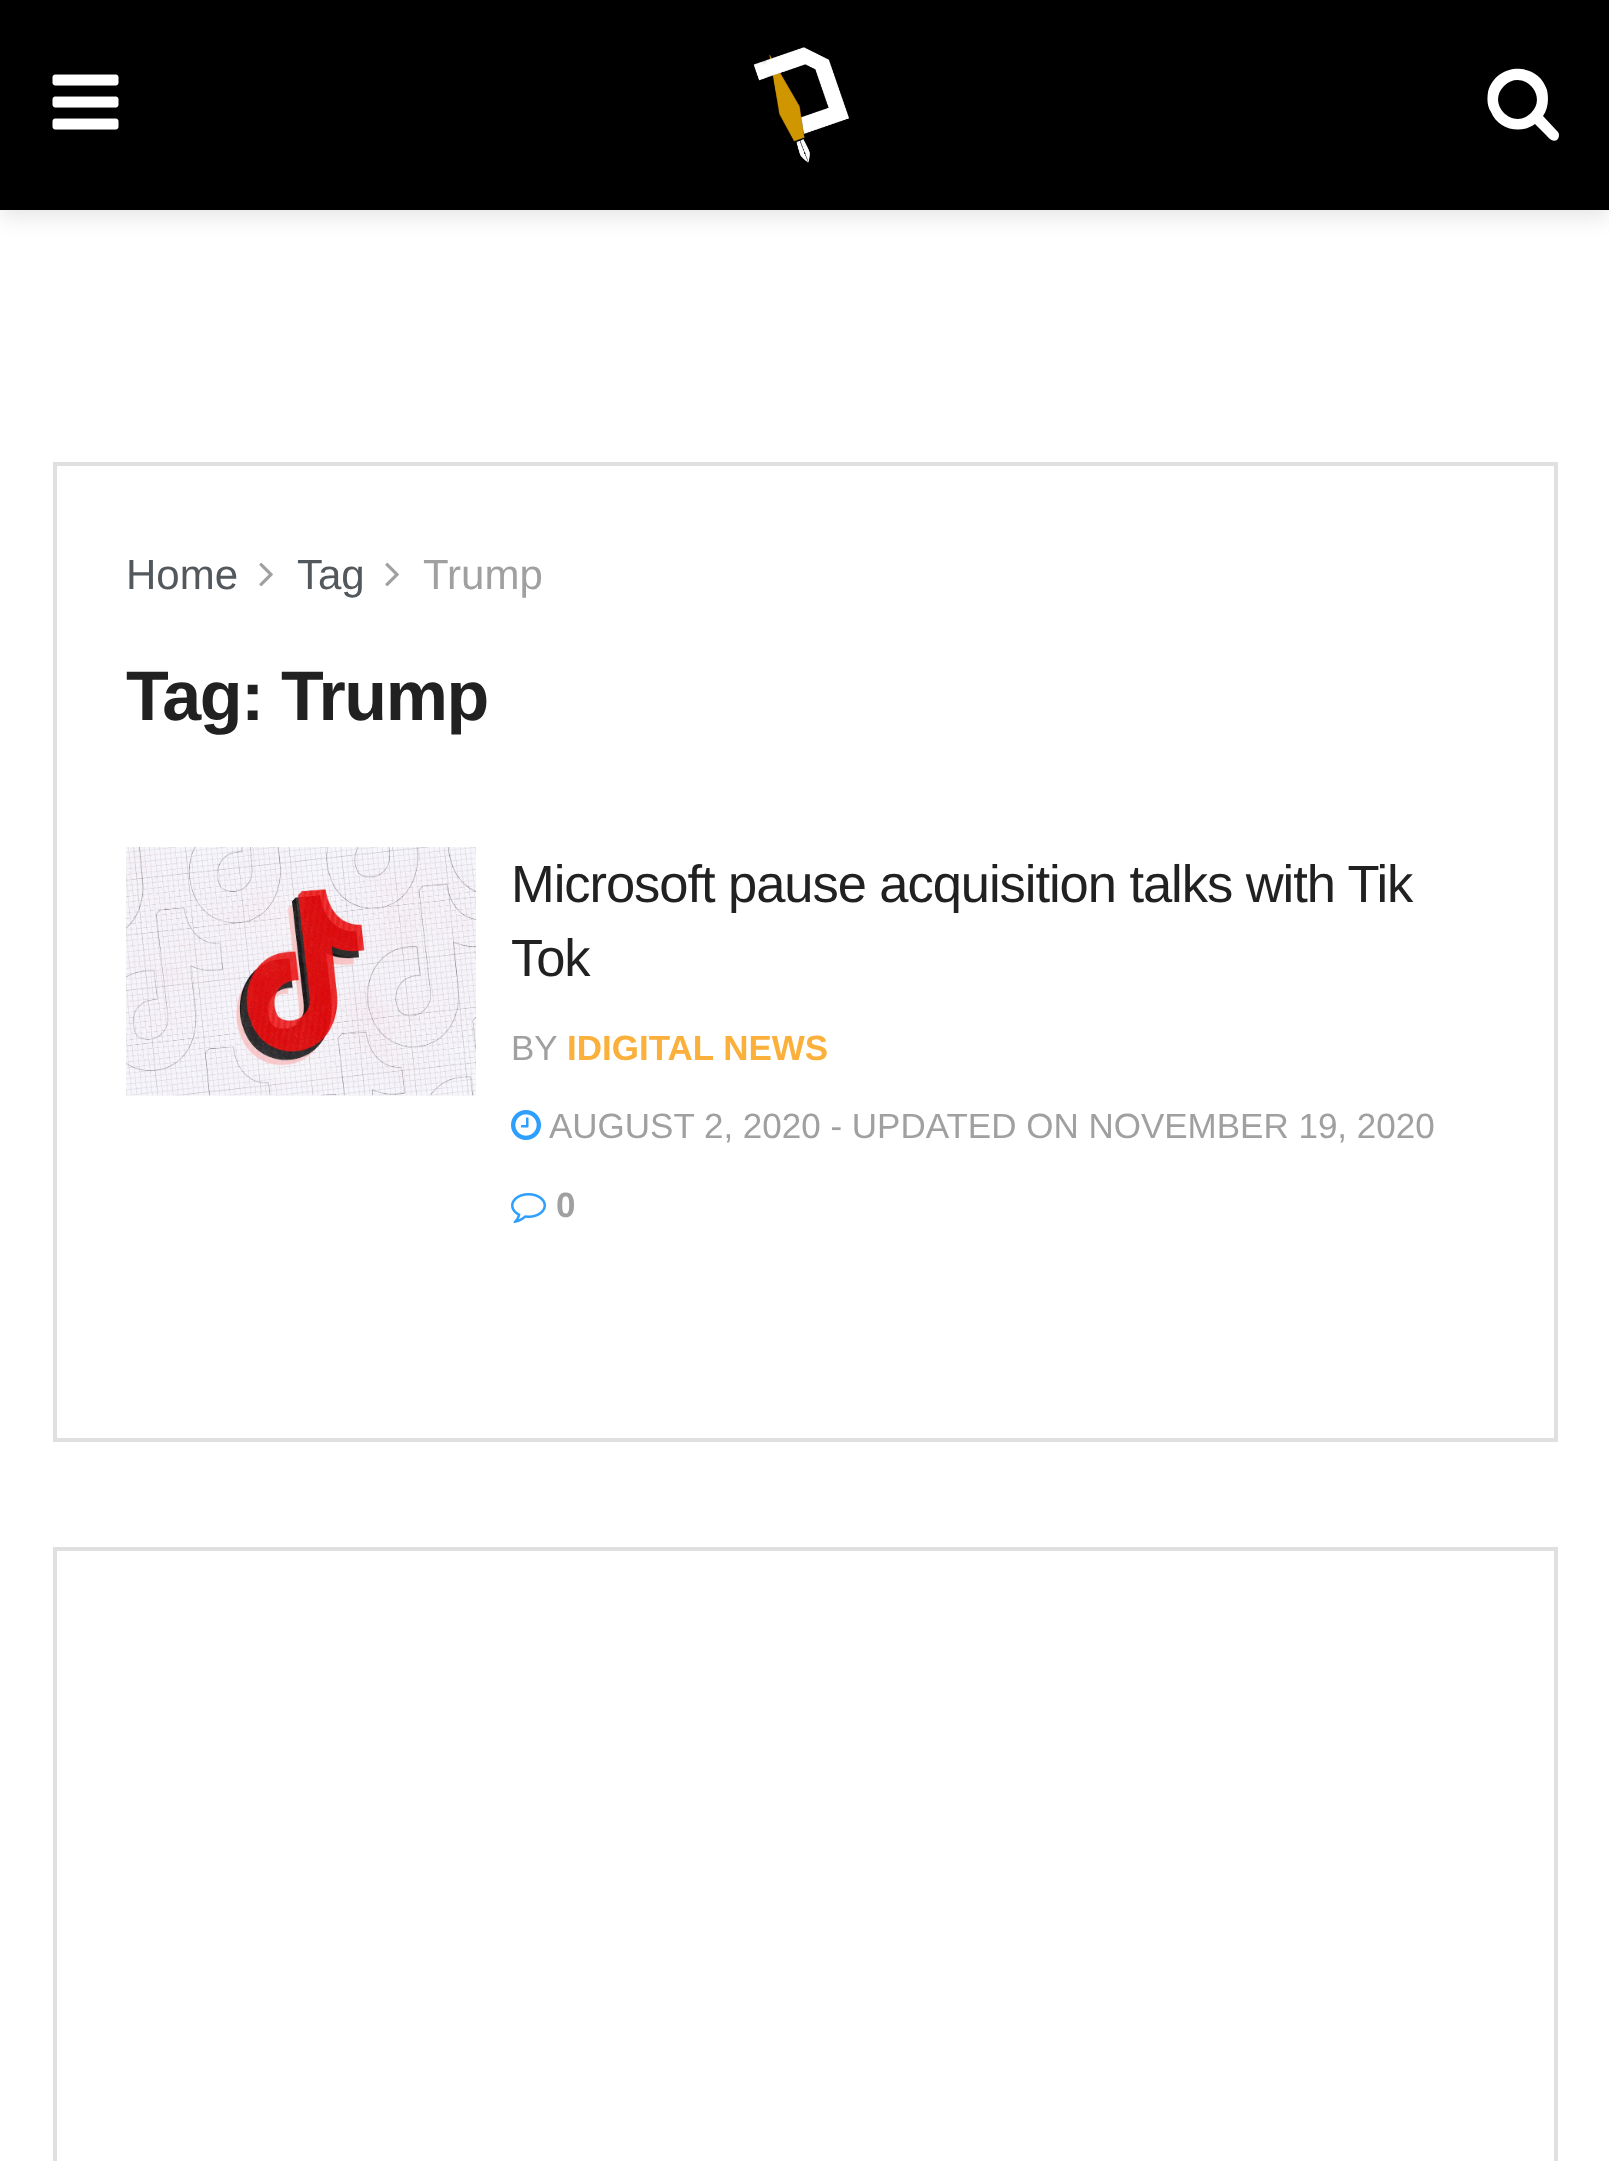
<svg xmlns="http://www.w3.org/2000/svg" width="1609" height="2161">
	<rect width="100%" height="100%" fill="#FFFFFF" />
	<rect x="0" y="7" width="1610" height="210" fill="#000000" fill-opacity="0.1" filter="blur(10.5px)" />
	<rect x="0" y="0" width="1609" height="210" fill="#000000" />
	<image x="52" y="74" width="67" height="56" href="assets/img1.png" />
	<image x="753" y="47" width="96" height="116" href="assets/img2.png" />
	<path d="M1531 113C1549 95 1522 68 1504 86C1486 104 1513 131 1531 113ZM1559 135C1559 137 1558 139 1557 140C1552 143 1548 137 1545 134L1535 124C1520 135 1498 129 1491 112C1487 106 1487 99 1488 92C1496 62 1538 61 1547 90C1549 99 1548 109 1543 116L1557 131C1558 132 1559 133 1559 135Z" fill="#FFFFFF" />
	<rect x="55" y="464" width="1501" height="976" fill="none" stroke="#E0E0E0" stroke-width="4" />
	<text x="126" y="589" font-family="Liberation Sans" font-size="42" fill="#53585C">Home</text>
	<image x="259" y="562" width="14" height="25" href="assets/img3.png" />
	<text x="297" y="589" font-family="Liberation Sans" font-size="42" fill="#53585C">Tag</text>
	<image x="385" y="562" width="14" height="25" href="assets/img3.png" />
	<text x="423" y="589" font-family="Liberation Sans" font-size="42" fill="#A0A0A0">Trump</text>
	<text x="126" y="720" font-family="Liberation Sans" font-size="70" font-weight="700" letter-spacing="-1.4" fill="#212121">Tag: Trump</text>
	<rect x="126" y="1095" width="350" height="1" fill="#F7F7F7" />
	<image x="126" y="847" width="350" height="249" href="assets/img4.png" />
	<g font-family="Liberation Sans" font-size="52.5" letter-spacing="-1.05" fill="#212121">
		<text x="511" y="902">Microsoft pause acquisition talks with Tik</text>
		<text x="511" y="976">Tok</text>
	</g>
	<text x="511" y="1060" font-family="Liberation Sans" font-size="35" fill="#A0A0A0">BY</text>
	<text x="567" y="1060" font-family="Liberation Sans" font-size="35" font-weight="700" fill="#FBB03B">IDIGITAL NEWS</text>
	<image x="511" y="1110" width="30" height="30" href="assets/img5.png" />
	<text x="549" y="1138" font-family="Liberation Sans" font-size="35" fill="#A0A0A0">AUGUST 2, 2020 - UPDATED ON NOVEMBER 19, 2020</text>
	<image x="511" y="1193" width="35" height="30" href="assets/img6.png" />
	<text x="556" y="1217" font-family="Liberation Sans" font-size="35" font-weight="700" fill="#A0A0A0">0</text>
	<rect x="55" y="1549" width="1501" height="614" fill="none" stroke="#E0E0E0" stroke-width="4" />
</svg>
